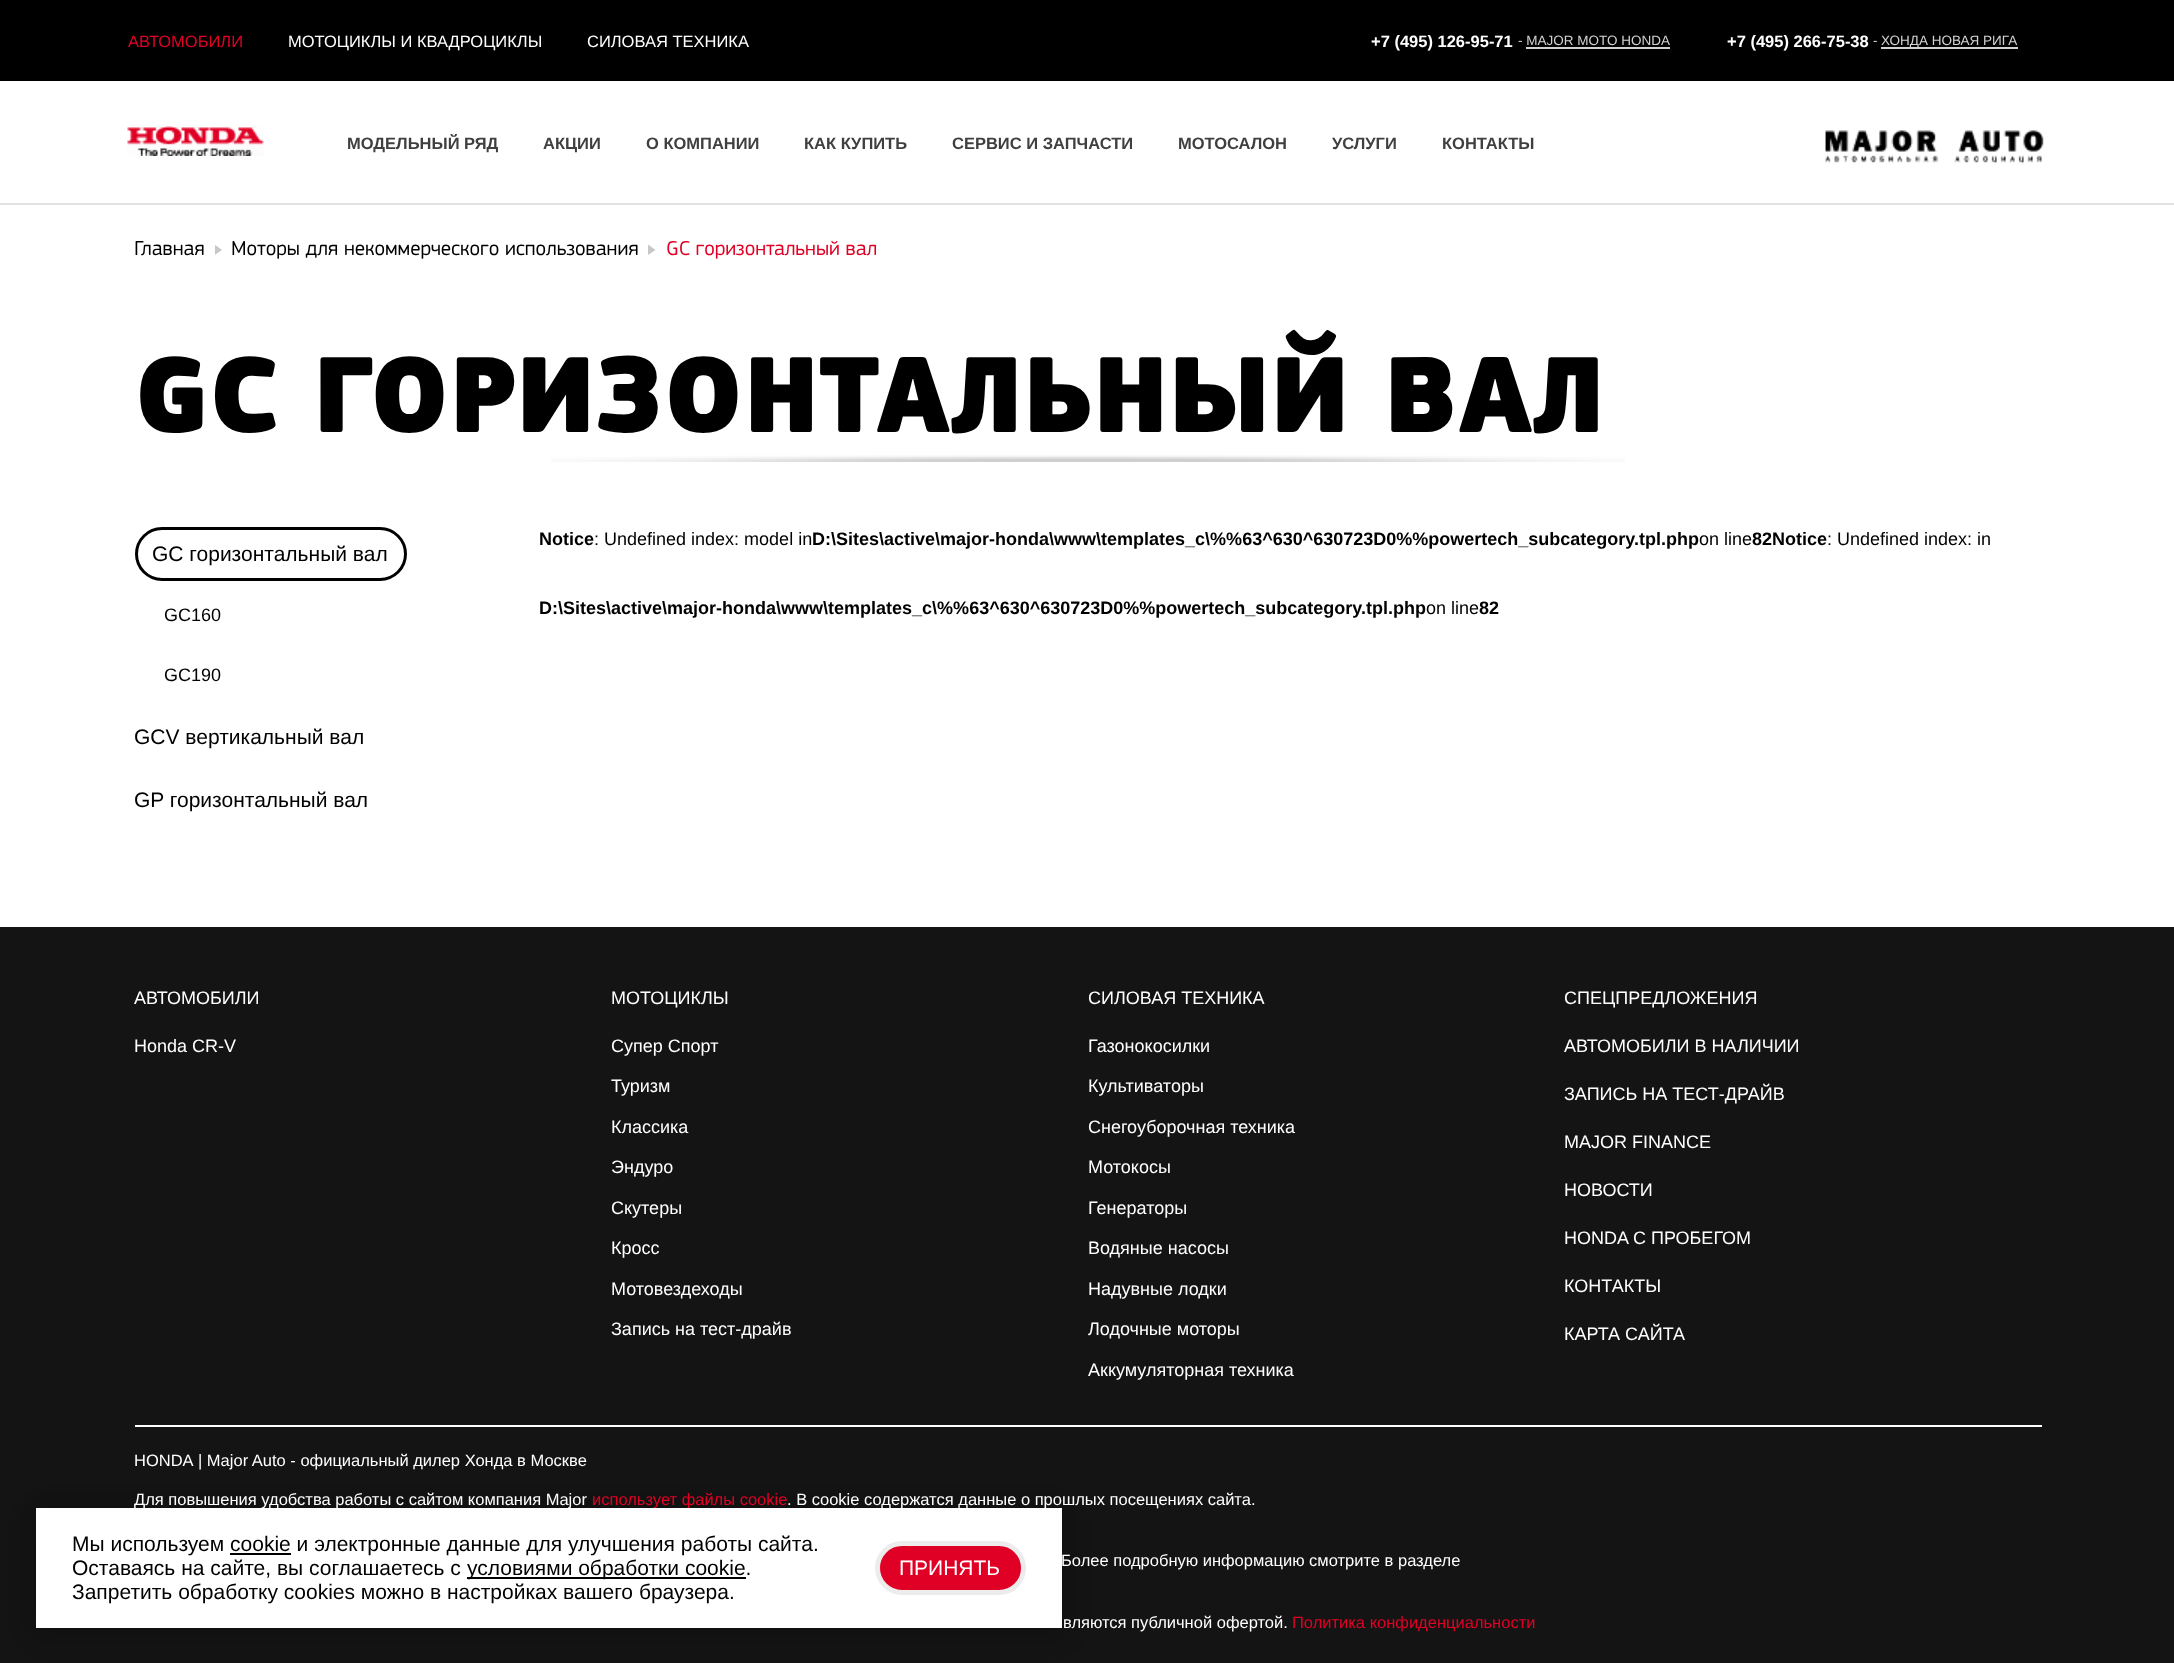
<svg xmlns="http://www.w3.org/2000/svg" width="2174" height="1663">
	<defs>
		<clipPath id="clip1"><rect x="215" y="245" width="7" height="10" /></clipPath>
	</defs>
	<rect width="100%" height="100%" fill="#FFFFFF" />
	<rect x="0" y="0" width="2174" height="81" fill="#000000" />
	<text x="128" y="47" font-family="Liberation Sans" font-size="16.5" fill="#E10025">АВТОМОБИЛИ</text>
	<g font-family="Liberation Sans" font-size="16.5" fill="#FFFFFF">
		<text x="288" y="47">МОТОЦИКЛЫ И КВАДРОЦИКЛЫ</text>
		<text x="587" y="47">СИЛОВАЯ ТЕХНИКА</text>
	</g>
	<text x="1371" y="47" font-family="Liberation Sans" font-size="16.5" font-weight="700" fill="#FFFFFF">+7 (495) 126-95-71</text>
	<text x="1518" y="45" font-family="Liberation Sans" font-size="13.5" fill="#D2D2D2">- MAJOR MOTO HONDA</text>
	<rect x="1526" y="47" width="144" height="2" fill="#D2D2D2" />
	<text x="1727" y="47" font-family="Liberation Sans" font-size="16.5" font-weight="700" fill="#FFFFFF">+7 (495) 266-75-38</text>
	<text x="1873" y="45" font-family="Liberation Sans" font-size="13.5" fill="#D2D2D2">-</text>
	<rect x="1881" y="47" width="137" height="2" fill="#D2D2D2" />
	<text x="1881" y="45" font-family="Liberation Sans" font-size="13.5" fill="#D2D2D2">ХОНДА НОВАЯ РИГА</text>
	<rect x="0" y="927" width="2174" height="736" fill="#151414" />
	<rect x="36" y="1508" width="1026" height="120" fill="#000000" fill-opacity="0.12" filter="blur(7.5px)" />
	<rect x="36" y="1514" width="1026" height="120" fill="#000000" fill-opacity="0.12" filter="blur(15px)" />
	<text x="592" y="1505" font-family="Liberation Sans" font-size="16.5" fill="#E10025">использует файлы cookie</text>
	<rect x="36" y="1508" width="1026" height="120" fill="#FFFFFF" />
	<text x="72" y="1551" font-family="Liberation Sans" font-size="21" fill="#000000">Мы используем cookie и электронные данные для улучшения работы сайта.</text>
	<rect x="230" y="1553" width="61" height="2" fill="#000000" />
	<text x="72" y="1575" font-family="Liberation Sans" font-size="21" fill="#000000">Оставаясь на сайте, вы соглашаетесь с</text>
	<rect x="467" y="1577" width="279" height="2" fill="#000000" />
	<g font-family="Liberation Sans" font-size="21" fill="#000000">
		<text x="467" y="1575">условиями обработки cookie.</text>
		<text x="72" y="1599">Запретить обработку cookies можно в настройках вашего браузера.</text>
	</g>
	<rect x="877.5" y="1543.5" width="146" height="49" rx="24.5" fill="#E10025" stroke="#ECECEC" stroke-width="5" />
	<text x="899" y="1575" font-family="Liberation Sans" font-size="21" fill="#FFFFFF">ПРИНЯТЬ</text>
	<rect x="0" y="203" width="2174" height="2" fill="#E1E1E1" />
	<image x="127" y="126" width="137" height="30" href="assets/img1.png" />
	<g font-family="Liberation Sans" font-size="16.5" font-weight="700" fill="#3F3F3F">
		<text x="347" y="149">МОДЕЛЬНЫЙ РЯД</text>
		<text x="543" y="149">АКЦИИ</text>
		<text x="646" y="149">О КОМПАНИИ</text>
		<text x="804" y="149">КАК КУПИТЬ</text>
		<text x="952" y="149">СЕРВИС И ЗАПЧАСТИ</text>
		<text x="1178" y="149">МОТОСАЛОН</text>
		<text x="1332" y="149">УСЛУГИ</text>
		<text x="1442" y="149">КОНТАКТЫ</text>
	</g>
	<image x="1825" y="130" width="219" height="34" href="assets/img2.png" />
	<text x="134" y="255" font-family="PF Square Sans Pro" font-size="21" fill="#000000">Главная</text>
	<g clip-path="url(#clip1)">
		<path d="M214.5 244.5V255L222 250Z" fill="#C8C7C7" fill-rule="evenodd" />
	</g>
	<text x="231" y="255" font-family="PF Square Sans Pro" font-size="21" fill="#000000">Моторы для некоммерческого использования</text>
	<path d="M648 244.5V255L655.5 250Z" fill="#C8C7C7" fill-rule="evenodd" />
	<text x="666" y="255" font-family="PF Square Sans Pro" font-size="21" fill="#E10025">GC горизонтальный вал</text>
	<text x="134" y="432" font-family="PF Square Sans Pro" font-size="112.5" font-weight="800" fill="#000000">GC ГОРИЗОНТАЛЬНЫЙ ВАЛ</text>
	<image x="551" y="455" width="1074" height="7" href="assets/img3.png" />
	<rect x="136.5" y="528.5" width="269" height="51" rx="25.5" fill="none" stroke="#000000" stroke-width="3" />
	<text x="152" y="561" font-family="Liberation Sans" font-size="21" fill="#000000">GC горизонтальный вал</text>
	<g font-family="Liberation Sans" font-size="18" fill="#000000">
		<text x="164" y="621">GC160</text>
		<text x="164" y="681">GC190</text>
	</g>
	<g font-family="Liberation Sans" font-size="21" fill="#000000">
		<text x="134" y="744">GCV вертикальный вал</text>
		<text x="134" y="807">GP горизонтальный вал</text>
	</g>
	<text x="539" y="545" font-family="Liberation Sans" font-size="18" font-weight="700" fill="#000000">Notice</text>
	<text x="594" y="545" font-family="Liberation Sans" font-size="18" fill="#000000">: Undefined index: model in</text>
	<text x="812" y="545" font-family="Liberation Sans" font-size="18" font-weight="700" fill="#000000">D:\Sites\active\major-honda\www\templates_c\%%63^630^630723D0%%powertech_subcategory.tpl.php</text>
	<text x="1699" y="545" font-family="Liberation Sans" font-size="18" fill="#000000">on line</text>
	<text x="1752" y="545" font-family="Liberation Sans" font-size="18" font-weight="700" fill="#000000">82Notice</text>
	<text x="1827" y="545" font-family="Liberation Sans" font-size="18" fill="#000000">: Undefined index: in</text>
	<text x="539" y="614" font-family="Liberation Sans" font-size="18" font-weight="700" fill="#000000">D:\Sites\active\major-honda\www\templates_c\%%63^630^630723D0%%powertech_subcategory.tpl.php</text>
	<text x="1426" y="614" font-family="Liberation Sans" font-size="18" fill="#000000">on line</text>
	<text x="1479" y="614" font-family="Liberation Sans" font-size="18" font-weight="700" fill="#000000">82</text>
	<rect x="135" y="1425" width="1907" height="2" fill="#FFFFFF" />
	<g font-family="Liberation Sans" font-size="18" fill="#FFFFFF">
		<text x="134" y="1004">АВТОМОБИЛИ</text>
		<text x="134" y="1052">Honda CR-V</text>
		<text x="611" y="1004">МОТОЦИКЛЫ</text>
		<text x="611" y="1052">Супер Спорт</text>
		<text x="611" y="1092">Туризм</text>
		<text x="611" y="1133">Классика</text>
		<text x="611" y="1173">Эндуро</text>
		<text x="611" y="1214">Скутеры</text>
		<text x="611" y="1254">Кросс</text>
		<text x="611" y="1295">Мотовездеходы</text>
		<text x="611" y="1335">Запись на тест-драйв</text>
		<text x="1088" y="1004">СИЛОВАЯ ТЕХНИКА</text>
		<text x="1088" y="1052">Газонокосилки</text>
		<text x="1088" y="1092">Культиваторы</text>
		<text x="1088" y="1133">Снегоуборочная техника</text>
		<text x="1088" y="1173">Мотокосы</text>
		<text x="1088" y="1214">Генераторы</text>
		<text x="1088" y="1254">Водяные насосы</text>
		<text x="1088" y="1295">Надувные лодки</text>
		<text x="1088" y="1335">Лодочные моторы</text>
		<text x="1088" y="1376">Аккумуляторная техника</text>
		<text x="1564" y="1004">СПЕЦПРЕДЛОЖЕНИЯ</text>
		<text x="1564" y="1052">АВТОМОБИЛИ В НАЛИЧИИ</text>
		<text x="1564" y="1100">ЗАПИСЬ НА ТЕСТ-ДРАЙВ</text>
		<text x="1564" y="1148">MAJOR FINANCE</text>
		<text x="1564" y="1196">НОВОСТИ</text>
		<text x="1564" y="1244">HONDA С ПРОБЕГОМ</text>
		<text x="1564" y="1292">КОНТАКТЫ</text>
		<text x="1564" y="1340">КАРТА САЙТА</text>
	</g>
	<g font-family="Liberation Sans" font-size="16.5" fill="#FFFFFF">
		<text x="134" y="1466">HONDA</text>
		<text x="198" y="1466">| Major Auto - официальный дилер Хонда в Москве</text>
		<text x="134" y="1505">Для повышения удобства работы с сайтом компания Major</text>
		<text x="787" y="1505">. В cookie содержатся данные о прошлых посещениях сайта.</text>
		<text x="1061" y="1566">Более подробную информацию смотрите в разделе</text>
		<text x="1063" y="1628">вляются публичной офертой.</text>
	</g>
	<text x="1292" y="1628" font-family="Liberation Sans" font-size="16.5" fill="#E10025">Политика конфиденциальности</text>
</svg>
